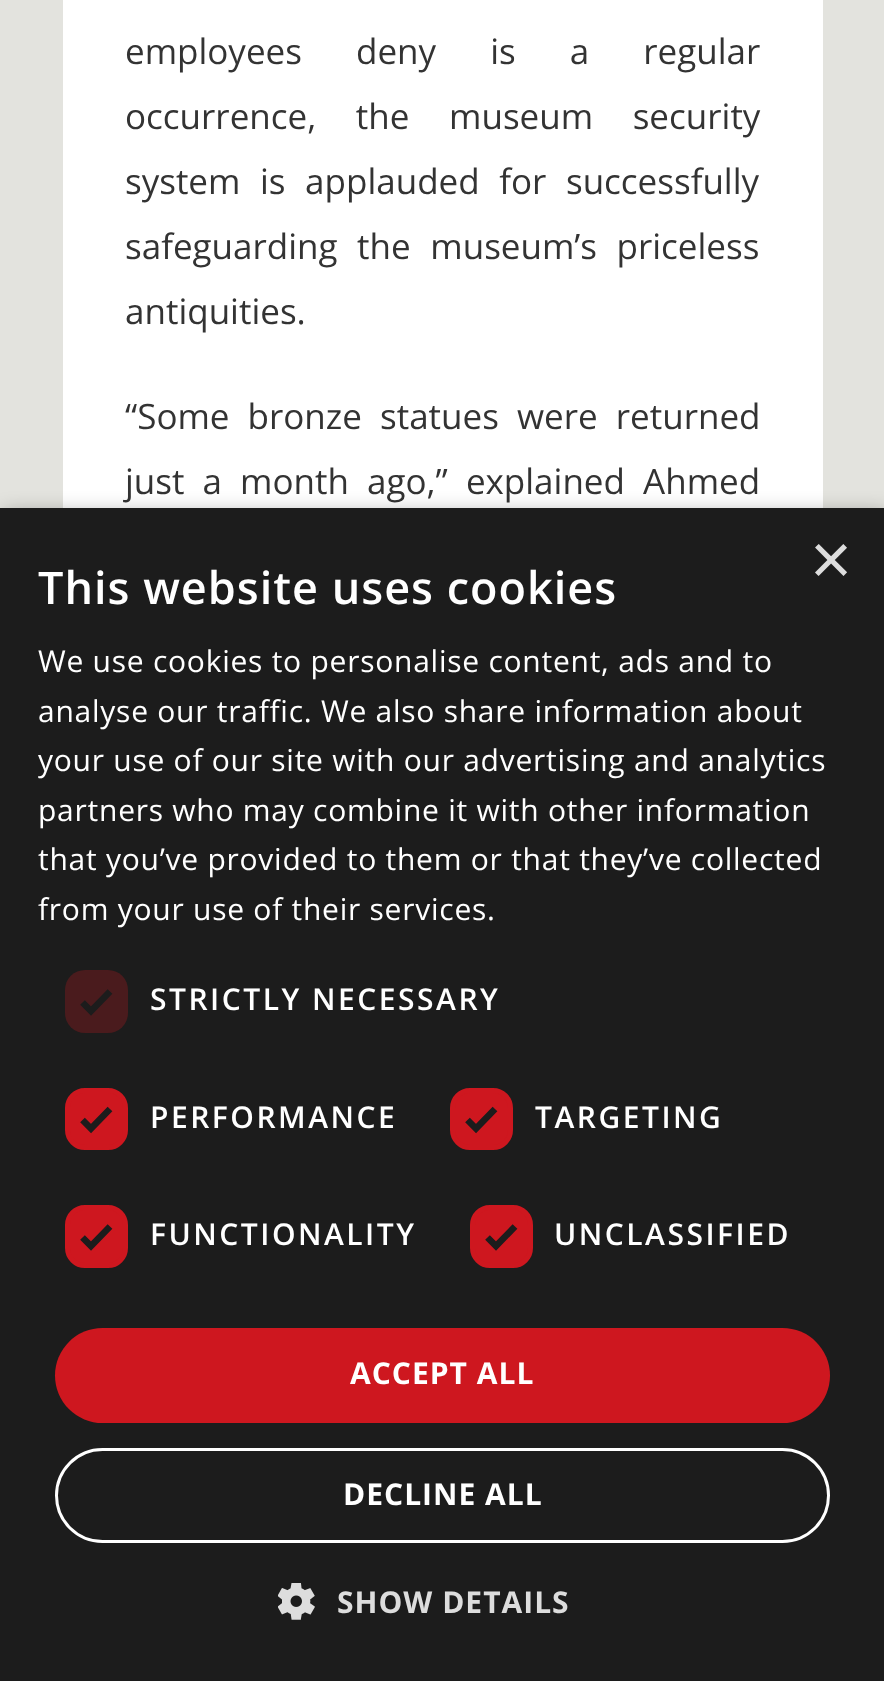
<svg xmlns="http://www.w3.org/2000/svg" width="884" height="1681">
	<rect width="100%" height="100%" fill="#E3E3DE" />
	<rect x="63" y="0" width="760" height="508" fill="#FFFFFF" />
	<g font-family="Open Sans" font-size="35" fill="#333333">
		<text x="125" y="64" word-spacing="45">employees deny is a regular</text>
		<text x="125" y="129" word-spacing="30.5">occurrence, the museum security</text>
		<text x="125" y="194" word-spacing="10.5">system is applauded for successfully</text>
		<text x="125" y="259" word-spacing="10.5">safeguarding the museum’s priceless</text>
		<text x="125" y="324">antiquities.</text>
		<text x="125" y="429" word-spacing="9">“Some bronze statues were returned</text>
		<text x="125" y="494" word-spacing="9">just a month ago,” explained Ahmed</text>
	</g>
	<rect x="3" y="513" width="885" height="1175" fill="#000000" fill-opacity="0.35" filter="blur(10px)" />
	<rect x="0" y="508" width="884" height="1173" fill="#1C1C1C" />
	<text x="810" y="584" font-family="Liberation Sans" font-size="72" fill="#DDDDDD">×</text>
	<text x="38" y="604" font-family="Open Sans" font-size="45" font-weight="600" letter-spacing="1" fill="#FFFFFF">This website uses cookies</text>
	<g font-family="Open Sans" font-size="30" letter-spacing="0.75" fill="#FFFFFF">
		<text x="38" y="672">We use cookies to personalise content, ads and to</text>
		<text x="38" y="722">analyse our traffic. We also share information about</text>
		<text x="38" y="771">your use of our site with our advertising and analytics</text>
		<text x="38" y="821">partners who may combine it with other information</text>
		<text x="38" y="870">that you’ve provided to them or that they’ve collected</text>
		<text x="38" y="920">from your use of their services.</text>
	</g>
	<rect x="65" y="970" width="63" height="63" rx="20" fill="#4A1B1D" />
	<path d="M82.5 1002.5L91 1011L110 991.5" fill="none" stroke="#1C1C1C" stroke-width="6.6" />
	<text x="150" y="1010" font-family="Open Sans" font-size="30" font-weight="600" letter-spacing="2.5" fill="#FFFFFF">STRICTLY NECESSARY</text>
	<rect x="67.5" y="1090.5" width="58" height="57" rx="17.5" fill="#CE171F" stroke="#CE171F" stroke-width="5" />
	<path d="M82.5 1120L91 1128.5L110 1109" fill="none" stroke="#1C1C1C" stroke-width="6.6" />
	<text x="150" y="1128" font-family="Open Sans" font-size="30" font-weight="600" letter-spacing="2.5" fill="#FFFFFF">PERFORMANCE</text>
	<rect x="452.5" y="1090.5" width="58" height="57" rx="17.5" fill="#CE171F" stroke="#CE171F" stroke-width="5" />
	<path d="M467.5 1120L476 1128.5L495 1109" fill="none" stroke="#1C1C1C" stroke-width="6.6" />
	<text x="535" y="1128" font-family="Open Sans" font-size="30" font-weight="600" letter-spacing="2.5" fill="#FFFFFF">TARGETING</text>
	<rect x="67.5" y="1207.5" width="58" height="58" rx="17.5" fill="#CE171F" stroke="#CE171F" stroke-width="5" />
	<path d="M82.5 1237.5L91 1246L110 1226.5" fill="none" stroke="#1C1C1C" stroke-width="6.6" />
	<text x="150" y="1245" font-family="Open Sans" font-size="30" font-weight="600" letter-spacing="2.5" fill="#FFFFFF">FUNCTIONALITY</text>
	<rect x="472.5" y="1207.5" width="58" height="58" rx="17.5" fill="#CE171F" stroke="#CE171F" stroke-width="5" />
	<path d="M487.5 1237.5L496 1246L515 1226.5" fill="none" stroke="#1C1C1C" stroke-width="6.6" />
	<text x="554" y="1245" font-family="Open Sans" font-size="30" font-weight="600" letter-spacing="2.5" fill="#FFFFFF">UNCLASSIFIED</text>
	<rect x="55" y="1328" width="775" height="95" rx="47.5" fill="#CE171F" />
	<text x="350" y="1384" font-family="Open Sans" font-size="30" font-weight="700" letter-spacing="1" fill="#FFFFFF">ACCEPT ALL</text>
	<rect x="56.5" y="1449.5" width="772" height="92" rx="46" fill="none" stroke="#FFFFFF" stroke-width="3" />
	<text x="343" y="1505" font-family="Open Sans" font-size="30" font-weight="700" letter-spacing="1" fill="#FFFFFF">DECLINE ALL</text>
	<image x="278" y="1583" width="37" height="37" href="assets/img1.png" />
	<text x="337" y="1613" font-family="Open Sans" font-size="30" font-weight="700" letter-spacing="1" fill="#DDDDDD">SHOW DETAILS</text>
</svg>
